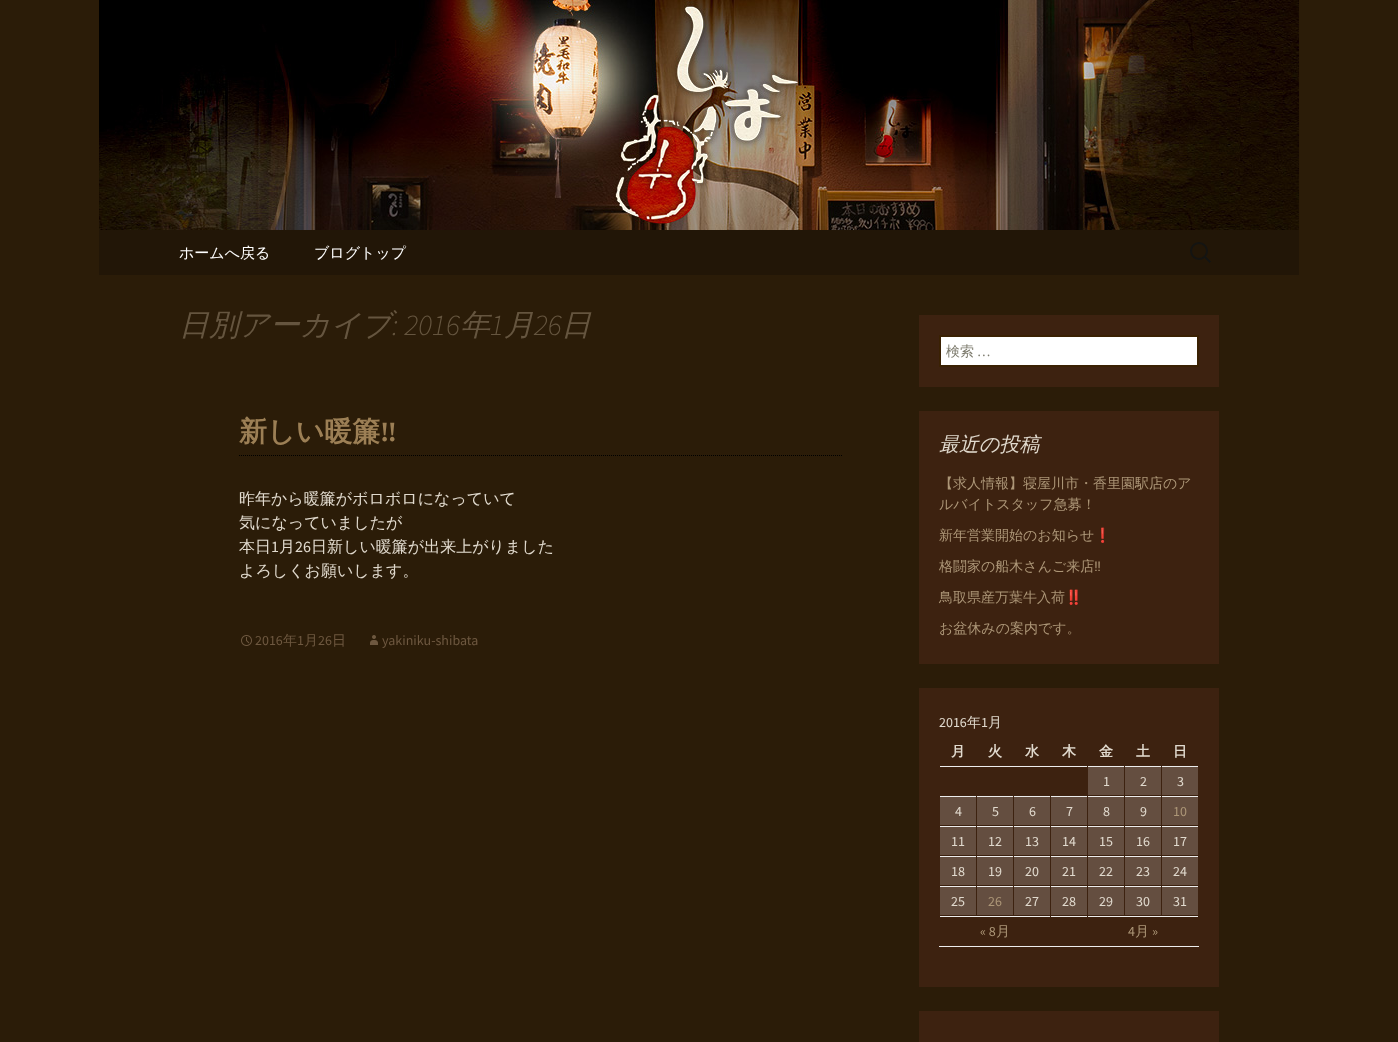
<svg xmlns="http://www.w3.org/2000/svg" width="1398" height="1042">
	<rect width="100%" height="100%" fill="#2B1C08" />
	<image x="99" y="0" width="1200" height="230" href="assets/img1.png" />
	<rect x="99" y="230" width="1200" height="45" fill="#221607" />
	<g font-family="WenQuanYi Zen Hei" font-size="15" font-weight="500" fill="#FFFFFF">
		<text x="179" y="258">ホームへ戻る</text>
		<text x="314" y="258">ブログトップ</text>
	</g>
	<image x="1190" y="242" width="21" height="21" href="assets/img2.png" />
	<text x="179" y="335" font-family="WenQuanYi Zen Hei" font-size="30" font-weight="500" font-style="italic" fill="#65553F">日別アーカイブ</text>
	<text x="392" y="335" font-family="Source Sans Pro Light" font-size="30" font-weight="300" font-style="italic" fill="#65553F">: 2016</text>
	<text x="460" y="335" font-family="WenQuanYi Zen Hei" font-size="30" font-weight="500" font-style="italic" fill="#65553F">年</text>
	<text x="490" y="335" font-family="Source Sans Pro Light" font-size="30" font-weight="300" font-style="italic" fill="#65553F">1</text>
	<text x="504" y="335" font-family="WenQuanYi Zen Hei" font-size="30" font-weight="500" font-style="italic" fill="#65553F">月</text>
	<text x="534" y="335" font-family="Source Sans Pro Light" font-size="30" font-weight="300" font-style="italic" fill="#65553F">26</text>
	<text x="561" y="335" font-family="WenQuanYi Zen Hei" font-size="30" font-weight="500" font-style="italic" fill="#65553F">日</text>
	<path d="M239 455.5H843" fill="none" stroke="#000000" stroke-dasharray="1 1" />
	<text x="239" y="441" font-family="WenQuanYi Zen Hei" font-size="28" font-weight="700" fill="#9C7F55">新しい暖簾</text>
	<text x="380" y="441" font-family="Liberation Serif" font-size="28" font-weight="700" fill="#9C7F55">‼︎</text>
	<g font-family="WenQuanYi Zen Hei" font-size="16" font-weight="500" fill="#E1DACE">
		<text x="239" y="504">昨年から暖簾がボロボロになっていて</text>
		<text x="239" y="528">気になっていましたが</text>
		<text x="239" y="552">本日</text>
	</g>
	<text x="271" y="552" font-family="Source Sans Pro" font-size="16" fill="#E1DACE">1</text>
	<text x="279" y="552" font-family="WenQuanYi Zen Hei" font-size="16" font-weight="500" fill="#E1DACE">月</text>
	<text x="295" y="552" font-family="Source Sans Pro" font-size="16" fill="#E1DACE">26</text>
	<g font-family="WenQuanYi Zen Hei" font-size="16" font-weight="500" fill="#E1DACE">
		<text x="311" y="552">日新しい暖簾が出来上がりました</text>
		<text x="239" y="576">よろしくお願いします。</text>
	</g>
	<image x="241" y="635" width="11" height="11" href="assets/img3.png" />
	<text x="255" y="645" font-family="Source Sans Pro" font-size="14" fill="#6E5840">2016</text>
	<text x="283" y="645" font-family="WenQuanYi Zen Hei" font-size="14" font-weight="500" fill="#6E5840">年</text>
	<text x="297" y="645" font-family="Source Sans Pro" font-size="14" fill="#6E5840">1</text>
	<text x="304" y="645" font-family="WenQuanYi Zen Hei" font-size="14" font-weight="500" fill="#6E5840">月</text>
	<text x="318" y="645" font-family="Source Sans Pro" font-size="14" fill="#6E5840">26</text>
	<text x="332" y="645" font-family="WenQuanYi Zen Hei" font-size="14" font-weight="500" fill="#6E5840">日</text>
	<image x="370" y="635" width="8" height="10" href="assets/img4.png" />
	<text x="382" y="645" font-family="Source Sans Pro" font-size="14" fill="#6E5840">yakiniku-shibata</text>
	<rect x="919" y="315" width="300" height="72" fill="#3D2210" />
	<rect x="940" y="336" width="258" height="30" fill="#FFFFFF" stroke="#3A2103" stroke-width="2" />
	<text x="946" y="356" font-family="WenQuanYi Zen Hei" font-size="14" font-weight="500" fill="#7D7B6D">検索</text>
	<text x="977" y="356" font-family="Source Sans Pro" font-size="14" fill="#7D7B6D">…</text>
	<rect x="919" y="411" width="300" height="253" fill="#3D2210" />
	<text x="939" y="451" font-family="WenQuanYi Zen Hei" font-size="20" font-weight="500" font-style="italic" fill="#E1DACE">最近の投稿</text>
	<g font-family="WenQuanYi Zen Hei" font-size="14" font-weight="500" fill="#AC9677">
		<text x="939" y="488">【求人情報】寝屋川市・香里園駅店のア</text>
		<text x="939" y="509">ルバイトスタッフ急募！</text>
		<text x="939" y="540">新年営業開始のお知らせ</text>
	</g>
	<text x="1094" y="540" font-family="Noto Color Emoji" font-size="14" fill="#AC9677">❗️</text>
	<text x="939" y="571" font-family="WenQuanYi Zen Hei" font-size="14" font-weight="500" fill="#AC9677">格闘家の船木さんご来店</text>
	<text x="1094" y="571" font-family="Liberation Sans" font-size="14" fill="#AC9677">‼︎</text>
	<text x="939" y="602" font-family="WenQuanYi Zen Hei" font-size="14" font-weight="500" fill="#AC9677">鳥取県産万葉牛入荷</text>
	<text x="1065" y="602" font-family="Noto Color Emoji" font-size="14" fill="#AC9677">‼️</text>
	<text x="939" y="633" font-family="WenQuanYi Zen Hei" font-size="14" font-weight="500" fill="#AC9677">お盆休みの案内です。</text>
	<rect x="919" y="688" width="300" height="299" fill="#3D2210" />
	<rect x="939" y="946" width="260" height="1" fill="#EDEDED" />
	<text x="939" y="727" font-family="Source Sans Pro" font-size="14" fill="#E1DACE">2016</text>
	<text x="967" y="727" font-family="WenQuanYi Zen Hei" font-size="14" font-weight="500" fill="#E1DACE">年</text>
	<text x="981" y="727" font-family="Source Sans Pro" font-size="14" fill="#E1DACE">1</text>
	<text x="988" y="727" font-family="WenQuanYi Zen Hei" font-size="14" font-weight="500" fill="#E1DACE">月</text>
	<g font-family="WenQuanYi Zen Hei" font-size="14" font-weight="700" fill="#E1DACE">
		<text x="951" y="756">月</text>
		<text x="988" y="756">火</text>
		<text x="1025" y="756">水</text>
		<text x="1062" y="756">木</text>
		<text x="1099" y="756">金</text>
		<text x="1136" y="756">土</text>
		<text x="1173" y="756">日</text>
	</g>
	<rect x="940" y="766" width="147" height="1" fill="#EDEDED" />
	<rect x="1088" y="767" width="36" height="28" fill="#644E40" />
	<rect x="1088" y="766" width="36" height="1" fill="#EDEDED" />
	<text x="1103" y="786" font-family="Source Sans Pro" font-size="14" fill="#E1DACE">1</text>
	<rect x="1125" y="767" width="36" height="28" fill="#644E40" />
	<rect x="1125" y="766" width="36" height="1" fill="#EDEDED" />
	<text x="1140" y="786" font-family="Source Sans Pro" font-size="14" fill="#E1DACE">2</text>
	<rect x="1162" y="767" width="36" height="28" fill="#644E40" />
	<rect x="1162" y="766" width="36" height="1" fill="#EDEDED" />
	<text x="1177" y="786" font-family="Source Sans Pro" font-size="14" fill="#E1DACE">3</text>
	<rect x="940" y="797" width="36" height="28" fill="#644E40" />
	<rect x="940" y="796" width="36" height="1" fill="#EDEDED" />
	<text x="955" y="816" font-family="Source Sans Pro" font-size="14" fill="#E1DACE">4</text>
	<rect x="977" y="797" width="36" height="28" fill="#644E40" />
	<rect x="977" y="796" width="36" height="1" fill="#EDEDED" />
	<text x="992" y="816" font-family="Source Sans Pro" font-size="14" fill="#E1DACE">5</text>
	<rect x="1014" y="797" width="36" height="28" fill="#644E40" />
	<rect x="1014" y="796" width="36" height="1" fill="#EDEDED" />
	<text x="1029" y="816" font-family="Source Sans Pro" font-size="14" fill="#E1DACE">6</text>
	<rect x="1051" y="797" width="36" height="28" fill="#644E40" />
	<rect x="1051" y="796" width="36" height="1" fill="#EDEDED" />
	<text x="1066" y="816" font-family="Source Sans Pro" font-size="14" fill="#E1DACE">7</text>
	<rect x="1088" y="797" width="36" height="28" fill="#644E40" />
	<rect x="1088" y="796" width="36" height="1" fill="#EDEDED" />
	<text x="1103" y="816" font-family="Source Sans Pro" font-size="14" fill="#E1DACE">8</text>
	<rect x="1125" y="797" width="36" height="28" fill="#644E40" />
	<rect x="1125" y="796" width="36" height="1" fill="#EDEDED" />
	<text x="1140" y="816" font-family="Source Sans Pro" font-size="14" fill="#E1DACE">9</text>
	<rect x="1162" y="797" width="36" height="28" fill="#644E40" />
	<rect x="1162" y="796" width="36" height="1" fill="#EDEDED" />
	<text x="1173" y="816" font-family="Source Sans Pro" font-size="14" fill="#AC9677">10</text>
	<rect x="940" y="827" width="36" height="28" fill="#644E40" />
	<rect x="940" y="826" width="36" height="1" fill="#EDEDED" />
	<text x="951" y="846" font-family="Source Sans Pro" font-size="14" fill="#E1DACE">11</text>
	<rect x="977" y="827" width="36" height="28" fill="#644E40" />
	<rect x="977" y="826" width="36" height="1" fill="#EDEDED" />
	<text x="988" y="846" font-family="Source Sans Pro" font-size="14" fill="#E1DACE">12</text>
	<rect x="1014" y="827" width="36" height="28" fill="#644E40" />
	<rect x="1014" y="826" width="36" height="1" fill="#EDEDED" />
	<text x="1025" y="846" font-family="Source Sans Pro" font-size="14" fill="#E1DACE">13</text>
	<rect x="1051" y="827" width="36" height="28" fill="#644E40" />
	<rect x="1051" y="826" width="36" height="1" fill="#EDEDED" />
	<text x="1062" y="846" font-family="Source Sans Pro" font-size="14" fill="#E1DACE">14</text>
	<rect x="1088" y="827" width="36" height="28" fill="#644E40" />
	<rect x="1088" y="826" width="36" height="1" fill="#EDEDED" />
	<text x="1099" y="846" font-family="Source Sans Pro" font-size="14" fill="#E1DACE">15</text>
	<rect x="1125" y="827" width="36" height="28" fill="#644E40" />
	<rect x="1125" y="826" width="36" height="1" fill="#EDEDED" />
	<text x="1136" y="846" font-family="Source Sans Pro" font-size="14" fill="#E1DACE">16</text>
	<rect x="1162" y="827" width="36" height="28" fill="#644E40" />
	<rect x="1162" y="826" width="36" height="1" fill="#EDEDED" />
	<text x="1173" y="846" font-family="Source Sans Pro" font-size="14" fill="#E1DACE">17</text>
	<rect x="940" y="857" width="36" height="28" fill="#644E40" />
	<rect x="940" y="856" width="36" height="1" fill="#EDEDED" />
	<text x="951" y="876" font-family="Source Sans Pro" font-size="14" fill="#E1DACE">18</text>
	<rect x="977" y="857" width="36" height="28" fill="#644E40" />
	<rect x="977" y="856" width="36" height="1" fill="#EDEDED" />
	<text x="988" y="876" font-family="Source Sans Pro" font-size="14" fill="#E1DACE">19</text>
	<rect x="1014" y="857" width="36" height="28" fill="#644E40" />
	<rect x="1014" y="856" width="36" height="1" fill="#EDEDED" />
	<text x="1025" y="876" font-family="Source Sans Pro" font-size="14" fill="#E1DACE">20</text>
	<rect x="1051" y="857" width="36" height="28" fill="#644E40" />
	<rect x="1051" y="856" width="36" height="1" fill="#EDEDED" />
	<text x="1062" y="876" font-family="Source Sans Pro" font-size="14" fill="#E1DACE">21</text>
	<rect x="1088" y="857" width="36" height="28" fill="#644E40" />
	<rect x="1088" y="856" width="36" height="1" fill="#EDEDED" />
	<text x="1099" y="876" font-family="Source Sans Pro" font-size="14" fill="#E1DACE">22</text>
	<rect x="1125" y="857" width="36" height="28" fill="#644E40" />
	<rect x="1125" y="856" width="36" height="1" fill="#EDEDED" />
	<text x="1136" y="876" font-family="Source Sans Pro" font-size="14" fill="#E1DACE">23</text>
	<rect x="1162" y="857" width="36" height="28" fill="#644E40" />
	<rect x="1162" y="856" width="36" height="1" fill="#EDEDED" />
	<text x="1173" y="876" font-family="Source Sans Pro" font-size="14" fill="#E1DACE">24</text>
	<rect x="940" y="887" width="36" height="28" fill="#644E40" />
	<rect x="940" y="886" width="36" height="1" fill="#EDEDED" />
	<text x="951" y="906" font-family="Source Sans Pro" font-size="14" fill="#E1DACE">25</text>
	<rect x="977" y="887" width="36" height="28" fill="#644E40" />
	<rect x="977" y="886" width="36" height="1" fill="#EDEDED" />
	<text x="988" y="906" font-family="Source Sans Pro" font-size="14" fill="#AC9677">26</text>
	<rect x="1014" y="887" width="36" height="28" fill="#644E40" />
	<rect x="1014" y="886" width="36" height="1" fill="#EDEDED" />
	<text x="1025" y="906" font-family="Source Sans Pro" font-size="14" fill="#E1DACE">27</text>
	<rect x="1051" y="887" width="36" height="28" fill="#644E40" />
	<rect x="1051" y="886" width="36" height="1" fill="#EDEDED" />
	<text x="1062" y="906" font-family="Source Sans Pro" font-size="14" fill="#E1DACE">28</text>
	<rect x="1088" y="887" width="36" height="28" fill="#644E40" />
	<rect x="1088" y="886" width="36" height="1" fill="#EDEDED" />
	<text x="1099" y="906" font-family="Source Sans Pro" font-size="14" fill="#E1DACE">29</text>
	<rect x="1125" y="887" width="36" height="28" fill="#644E40" />
	<rect x="1125" y="886" width="36" height="1" fill="#EDEDED" />
	<text x="1136" y="906" font-family="Source Sans Pro" font-size="14" fill="#E1DACE">30</text>
	<rect x="1162" y="887" width="36" height="28" fill="#644E40" />
	<rect x="1162" y="886" width="36" height="1" fill="#EDEDED" />
	<text x="1173" y="906" font-family="Source Sans Pro" font-size="14" fill="#E1DACE">31</text>
	<rect x="1051" y="916" width="36" height="1" fill="#EDEDED" />
	<rect x="940" y="916" width="110" height="1" fill="#EDEDED" />
	<text x="980" y="936" font-family="Source Sans Pro" font-size="14" fill="#AC9677">« 8</text>
	<text x="996" y="936" font-family="WenQuanYi Zen Hei" font-size="14" font-weight="500" fill="#AC9677">月</text>
	<rect x="1088" y="916" width="110" height="1" fill="#EDEDED" />
	<text x="1128" y="936" font-family="Source Sans Pro" font-size="14" fill="#AC9677">4</text>
	<text x="1135" y="936" font-family="WenQuanYi Zen Hei" font-size="14" font-weight="500" fill="#AC9677">月</text>
	<text x="1152" y="936" font-family="Source Sans Pro" font-size="14" fill="#AC9677">»</text>
	<rect x="919" y="1011" width="300" height="31" fill="#3D2210" />
</svg>
